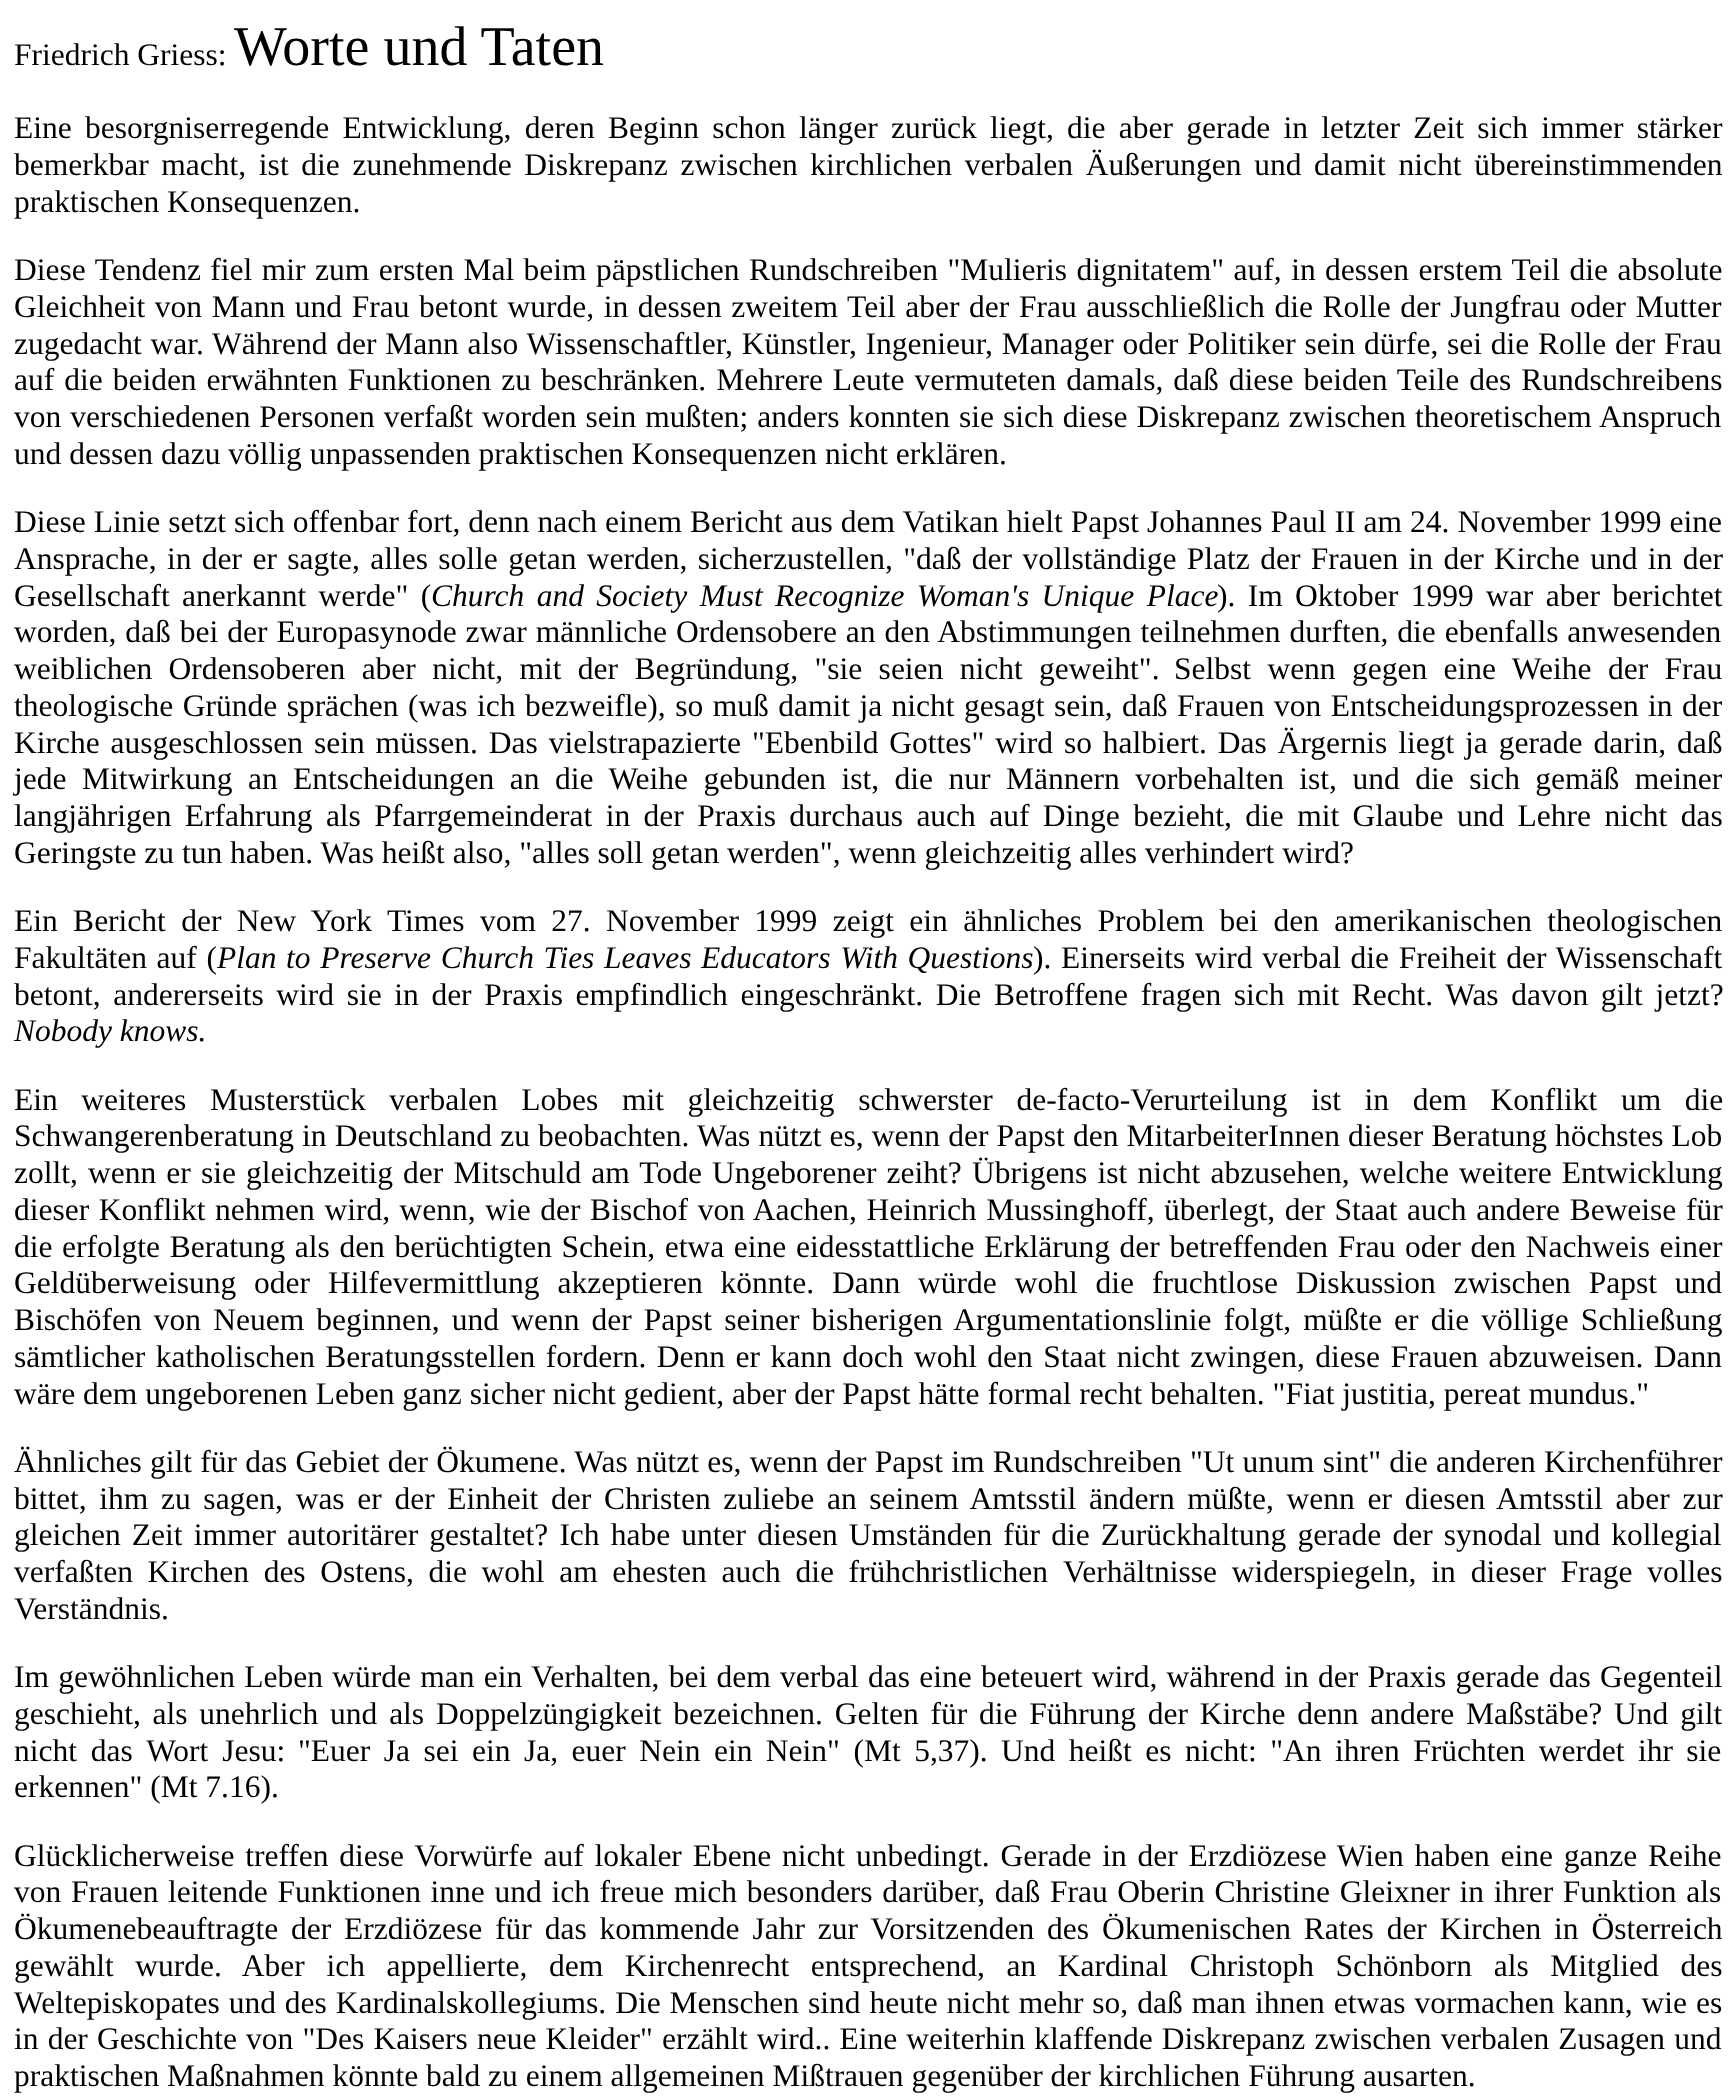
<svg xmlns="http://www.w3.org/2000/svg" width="1736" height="2097">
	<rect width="100%" height="100%" fill="#FFFFFF" />
	<text x="14" y="65" font-family="Liberation Serif" font-size="31.5" fill="#000000">Friedrich Griess:</text>
	<text x="234" y="65" font-family="Liberation Serif" font-size="56" fill="#000000">Worte und Taten</text>
	<g font-family="Liberation Serif" font-size="31.5" fill="#000000">
		<text x="14" y="138" word-spacing="5.4">Eine besorgniserregende Entwicklung, deren Beginn schon länger zurück liegt, die aber gerade in letzter Zeit sich immer stärker</text>
		<text x="14" y="175" word-spacing="4.8">bemerkbar macht, ist die zunehmende Diskrepanz zwischen kirchlichen verbalen Äußerungen und damit nicht übereinstimmenden</text>
		<text x="14" y="212">praktischen Konsequenzen.</text>
		<text x="14" y="280" word-spacing="1.6">Diese Tendenz fiel mir zum ersten Mal beim päpstlichen Rundschreiben "Mulieris dignitatem" auf, in dessen erstem Teil die absolute</text>
		<text x="14" y="317" word-spacing="1.75">Gleichheit von Mann und Frau betont wurde, in dessen zweitem Teil aber der Frau ausschließlich die Rolle der Jungfrau oder Mutter</text>
		<text x="14" y="354" word-spacing="0.9">zugedacht war. Während der Mann also Wissenschaftler, Künstler, Ingenieur, Manager oder Politiker sein dürfe, sei die Rolle der Frau</text>
		<text x="14" y="390" word-spacing="2.1">auf die beiden erwähnten Funktionen zu beschränken. Mehrere Leute vermuteten damals, daß diese beiden Teile des Rundschreibens</text>
		<text x="14" y="427" word-spacing="1.1">von verschiedenen Personen verfaßt worden sein mußten; anders konnten sie sich diese Diskrepanz zwischen theoretischem Anspruch</text>
		<text x="14" y="464">und dessen dazu völlig unpassenden praktischen Konsequenzen nicht erklären.</text>
		<text x="14" y="532" word-spacing="0.15">Diese Linie setzt sich offenbar fort, denn nach einem Bericht aus dem Vatikan hielt Papst Johannes Paul II am 24. November 1999 eine</text>
		<text x="14" y="569" word-spacing="2.5">Ansprache, in der er sagte, alles solle getan werden, sicherzustellen, "daß der vollständige Platz der Frauen in der Kirche und in der</text>
		<text x="14" y="606" word-spacing="4.5">Gesellschaft anerkannt werde" (</text>
	</g>
	<text x="431" y="606" word-spacing="4.5" font-family="Liberation Serif" font-size="31.5" font-style="italic" fill="#000000">Church and Society Must Recognize Woman's Unique Place</text>
	<g font-family="Liberation Serif" font-size="31.5" fill="#000000">
		<text x="1217" y="606" word-spacing="4.5">). Im Oktober 1999 war aber berichtet</text>
		<text x="14" y="642" word-spacing="1.1">worden, daß bei der Europasynode zwar männliche Ordensobere an den Abstimmungen teilnehmen durften, die ebenfalls anwesenden</text>
		<text x="14" y="679" word-spacing="8.5">weiblichen Ordensoberen aber nicht, mit der Begründung, "sie seien nicht geweiht".</text>
		<text x="1174" y="679" word-spacing="8.5">Selbst wenn gegen eine Weihe der Frau</text>
		<text x="14" y="716" word-spacing="1.6">theologische Gründe sprächen (was ich bezweifle), so muß damit ja nicht gesagt sein, daß Frauen von Entscheidungsprozessen in der</text>
		<text x="14" y="753" word-spacing="3">Kirche ausgeschlossen sein müssen. Das vielstrapazierte "Ebenbild Gottes" wird so halbiert. Das Ärgernis liegt ja gerade darin, daß</text>
		<text x="14" y="789" word-spacing="7.6">jede Mitwirkung an Entscheidungen an die Weihe gebunden ist, die nur Männern vorbehalten ist, und die sich gemäß meiner</text>
		<text x="14" y="826" word-spacing="5.5">langjährigen Erfahrung als Pfarrgemeinderat in der Praxis durchaus auch auf Dinge bezieht, die mit Glaube und Lehre nicht das</text>
		<text x="14" y="863">Geringste zu tun haben. Was heißt also, "alles soll getan werden", wenn gleichzeitig alles verhindert wird?</text>
		<text x="14" y="931" word-spacing="7.5">Ein Bericht der New York Times vom 27. November 1999 zeigt ein ähnliches Problem bei den amerikanischen theologischen</text>
		<text x="14" y="968" word-spacing="1.75">Fakultäten auf (</text>
	</g>
	<text x="217" y="968" word-spacing="1.75" font-family="Liberation Serif" font-size="31.5" font-style="italic" fill="#000000">Plan to Preserve Church Ties Leaves Educators With Questions</text>
	<g font-family="Liberation Serif" font-size="31.5" fill="#000000">
		<text x="1033" y="968">).</text>
		<text x="1061" y="968" word-spacing="1.75">Einerseits wird verbal die Freiheit der Wissenschaft</text>
		<text x="14" y="1005" word-spacing="4.75">betont, andererseits wird sie in der Praxis empfindlich eingeschränkt. Die Betroffene fragen sich mit Recht. Was davon gilt jetzt?</text>
	</g>
	<text x="14" y="1041" font-family="Liberation Serif" font-size="31.5" font-style="italic" fill="#000000">Nobody knows.</text>
	<g font-family="Liberation Serif" font-size="31.5" fill="#000000">
		<text x="14" y="1110" word-spacing="15.75">Ein weiteres Musterstück verbalen Lobes mit gleichzeitig schwerster de-facto-Verurteilung ist in dem Konflikt um die</text>
		<text x="14" y="1146" word-spacing="0.25">Schwangerenberatung in Deutschland zu beobachten. Was nützt es, wenn der Papst den MitarbeiterInnen dieser Beratung höchstes Lob</text>
		<text x="14" y="1183" word-spacing="2.25">zollt, wenn er sie gleichzeitig der Mitschuld am Tode Ungeborener zeiht? Übrigens ist nicht abzusehen, welche weitere Entwicklung</text>
		<text x="14" y="1220" word-spacing="1.7">dieser Konflikt nehmen wird, wenn, wie der Bischof von Aachen, Heinrich Mussinghoff, überlegt, der Staat auch andere Beweise für</text>
		<text x="14" y="1257" word-spacing="1.75">die erfolgte Beratung als den berüchtigten Schein, etwa eine eidesstattliche Erklärung der betreffenden Frau oder den Nachweis einer</text>
		<text x="14" y="1293" word-spacing="10">Geldüberweisung oder Hilfevermittlung akzeptieren könnte. Dann würde wohl die fruchtlose Diskussion zwischen Papst und</text>
		<text x="14" y="1330" word-spacing="4.25">Bischöfen von Neuem beginnen, und wenn der Papst seiner bisherigen Argumentationslinie folgt, müßte er die völlige Schließung</text>
		<text x="14" y="1367" word-spacing="2.6">sämtlicher katholischen Beratungsstellen fordern. Denn er kann doch wohl den Staat nicht zwingen, diese Frauen abzuweisen. Dann</text>
		<text x="14" y="1404">wäre dem ungeborenen Leben ganz sicher nicht gedient, aber der Papst hätte formal recht behalten. "Fiat justitia, pereat mundus."</text>
		<text x="14" y="1472" word-spacing="0.4">Ähnliches gilt für das Gebiet der Ökumene. Was nützt es, wenn der Papst im Rundschreiben "Ut unum sint" die anderen Kirchenführer</text>
		<text x="14" y="1509" word-spacing="4.8">bittet, ihm zu sagen, was er der Einheit der Christen zuliebe an seinem Amtsstil ändern müßte, wenn er diesen Amtsstil aber zur</text>
		<text x="14" y="1545" word-spacing="3.25">gleichen Zeit immer autoritärer gestaltet? Ich habe unter diesen Umständen für die Zurückhaltung gerade der synodal und kollegial</text>
		<text x="14" y="1582" word-spacing="6.75">verfaßten Kirchen des Ostens, die wohl am ehesten auch die frühchristlichen</text>
		<text x="1063" y="1582" word-spacing="7">Verhältnisse widerspiegeln, in dieser Frage volles</text>
		<text x="14" y="1619">Verständnis.</text>
		<text x="14" y="1687" word-spacing="1.4">Im gewöhnlichen Leben würde man ein Verhalten, bei dem verbal das eine beteuert wird, während in der Praxis gerade das Gegenteil</text>
		<text x="14" y="1724" word-spacing="3.9">geschieht, als unehrlich und als Doppelzüngigkeit bezeichnen. Gelten für die Führung der Kirche denn andere Maßstäbe? Und gilt</text>
		<text x="14" y="1761" word-spacing="6">nicht das Wort Jesu:</text>
		<text x="298" y="1761" word-spacing="5.6">"Euer Ja sei ein Ja, euer Nein ein Nein" (Mt 5,37). Und heißt es nicht: "An ihren Früchten werdet ihr sie</text>
		<text x="14" y="1797">erkennen" (Mt 7.16).</text>
		<text x="14" y="1866" word-spacing="2.9">Glücklicherweise treffen diese Vorwürfe auf lokaler Ebene nicht unbedingt. Gerade in der Erzdiözese Wien haben eine ganze Reihe</text>
		<text x="14" y="1902" word-spacing="1.8">von Frauen leitende Funktionen inne und ich freue mich besonders darüber, daß Frau Oberin Christine Gleixner in ihrer Funktion als</text>
		<text x="14" y="1939" word-spacing="5">Ökumenebeauftragte der Erzdiözese für das kommende Jahr zur Vorsitzenden des Ökumenischen Rates der Kirchen in Österreich</text>
		<text x="14" y="1976" word-spacing="13.75">gewählt wurde. Aber ich appellierte, dem Kirchenrecht entsprechend, an Kardinal Christoph Schönborn als Mitglied des</text>
		<text x="14" y="2013" word-spacing="1.1">Weltepiskopates und des Kardinalskollegiums. Die Menschen sind heute nicht mehr so, daß man ihnen etwas vormachen kann, wie es</text>
		<text x="14" y="2049" word-spacing="1.25">in der Geschichte von "Des Kaisers neue Kleider" erzählt wird.. Eine weiterhin klaffende Diskrepanz zwischen verbalen Zusagen und</text>
		<text x="14" y="2086">praktischen Maßnahmen könnte bald zu einem allgemeinen Mißtrauen gegenüber der kirchlichen Führung ausarten.</text>
	</g>
</svg>
